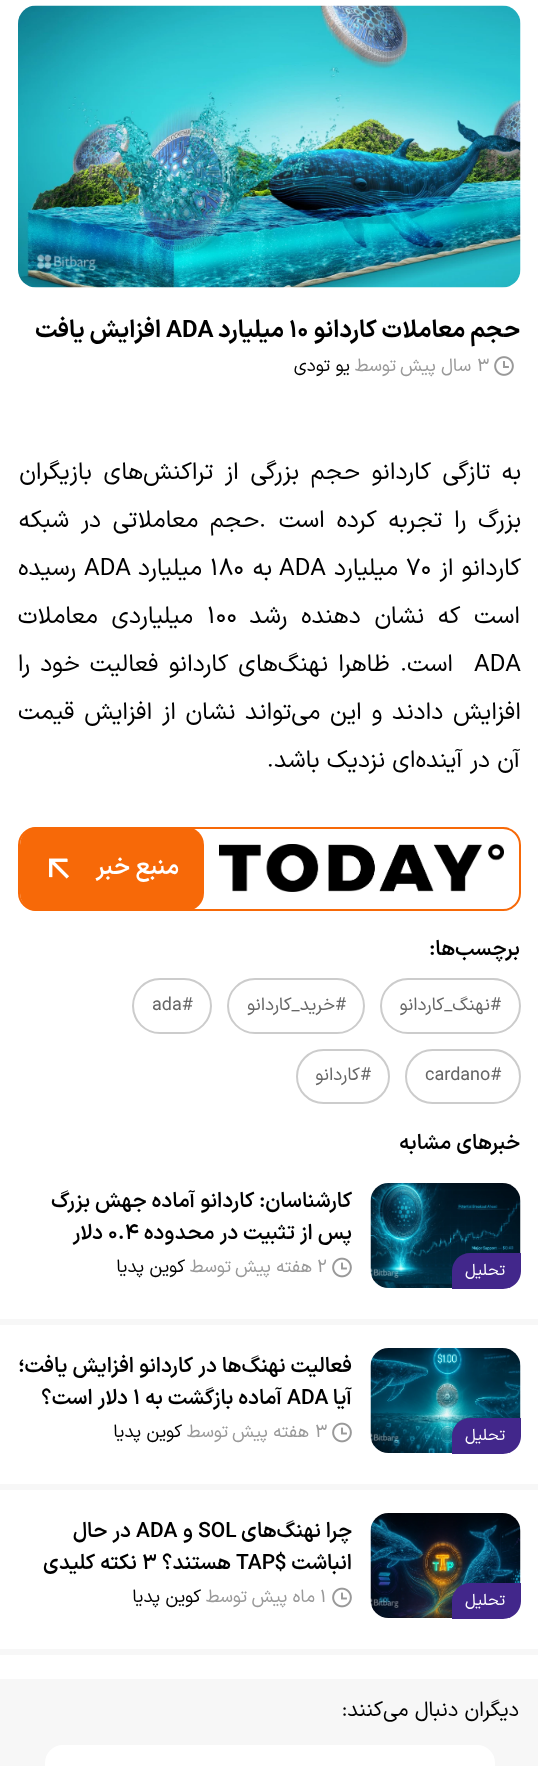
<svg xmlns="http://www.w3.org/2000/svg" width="538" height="1766">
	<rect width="100%" height="100%" fill="#FFFFFF" />
	<image x="18" y="5" width="503" height="283" href="assets/img1.png" />
	<text x="520" y="337" font-family="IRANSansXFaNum" font-size="24" font-weight="700" direction="rtl" fill="#000000">حجم معاملات کاردانو</text>
	<text x="289" y="337" font-family="IRANSansXFaNum" font-size="24" font-weight="700" fill="#000000">‍۱۰</text>
	<text x="284" y="337" font-family="IRANSansXFaNum" font-size="24" font-weight="700" direction="rtl" fill="#000000">میلیارد</text>
	<text x="166" y="337" font-family="IRANSansXFaNum" font-size="24" font-weight="700" fill="#000000">ADA</text>
	<text x="161" y="337" font-family="IRANSansXFaNum" font-size="24" font-weight="700" direction="rtl" fill="#000000">افزایش یافت</text>
	<image x="494" y="356" width="20" height="20" href="assets/img2.png" />
	<text x="477" y="371" font-family="IRANSansXFaNum" font-size="18" fill="#999999">3</text>
	<g font-family="IRANSansXFaNum" font-size="18" direction="rtl" fill="#999999">
		<text x="471" y="371">سال پیش</text>
		<text x="396" y="371">توسط</text>
	</g>
	<text x="350" y="371" font-family="IRANSansXFaNum" font-size="18" direction="rtl" fill="#000000">یو تودی</text>
	<g font-family="IRANSansXFaNum" font-size="24" direction="rtl" fill="#000000">
		<text x="521" y="479" word-spacing="4.5">به تازگی کاردانو حجم بزرگی از تراکنش‌های بازیگران</text>
		<text x="521" y="527" word-spacing="4.5">بزرگ را تجربه کرده است</text>
	</g>
	<text x="259" y="527" font-family="IRANSansXFaNum" font-size="24" fill="#000000">.</text>
	<g font-family="IRANSansXFaNum" font-size="24" direction="rtl" fill="#000000">
		<text x="259" y="527" word-spacing="4.5">حجم معاملاتی در شبکه</text>
		<text x="521" y="575" word-spacing="1">کاردانو از</text>
	</g>
	<text x="406" y="575" font-family="IRANSansXFaNum" font-size="24" fill="#000000">۷۰</text>
	<text x="398" y="575" font-family="IRANSansXFaNum" font-size="24" direction="rtl" fill="#000000">میلیارد</text>
	<text x="279" y="575" font-family="IRANSansXFaNum" font-size="24" fill="#000000">ADA</text>
	<text x="272" y="575" font-family="IRANSansXFaNum" font-size="24" direction="rtl" fill="#000000">به</text>
	<text x="210" y="575" font-family="IRANSansXFaNum" font-size="24" fill="#000000">۱۸۰</text>
	<text x="202" y="575" font-family="IRANSansXFaNum" font-size="24" direction="rtl" fill="#000000">میلیارد</text>
	<text x="84" y="575" font-family="IRANSansXFaNum" font-size="24" fill="#000000">ADA</text>
	<g font-family="IRANSansXFaNum" font-size="24" direction="rtl" fill="#000000">
		<text x="76" y="575">رسیده</text>
		<text x="520" y="623" word-spacing="6.5">است که نشان دهنده رشد</text>
	</g>
	<text x="207" y="623" font-family="IRANSansXFaNum" font-size="24" fill="#000000">۱۰۰</text>
	<text x="193" y="623" word-spacing="6.5" font-family="IRANSansXFaNum" font-size="24" direction="rtl" fill="#000000">میلیاردی معاملات</text>
	<text x="474" y="671" font-family="IRANSansXFaNum" font-size="24" fill="#000000">ADA</text>
	<g font-family="IRANSansXFaNum" font-size="24" direction="rtl" fill="#000000">
		<text x="453" y="671">است</text>
		<text x="407" y="671" word-spacing="3">. ظاهرا نهنگ‌های کاردانو فعالیت خود را</text>
		<text x="521" y="719" word-spacing="2.5">افزایش دادند و این می‌تواند نشان از افزایش قیمت</text>
		<text x="520" y="767">آن در آینده‌ای نزدیک باشد.</text>
	</g>
	<rect x="19" y="828" width="501" height="82" rx="17" fill="none" stroke="#F76908" stroke-width="2" />
	<image x="219" y="844" width="285" height="48" href="assets/img3.png" />
	<rect x="20" y="827" width="184" height="84" rx="18" fill="#F76908" />
	<text x="179" y="874" font-family="IRANSansXFaNum" font-size="24" font-weight="600" direction="rtl" fill="#FFFFFF">منبع خبر</text>
	<image x="49" y="858" width="20" height="21" href="assets/img4.png" />
	<text x="520" y="955" font-family="IRANSansXFaNum" font-size="21" font-weight="600" direction="rtl" fill="#000000">برچسب‌ها:</text>
	<rect x="381" y="979" width="139" height="54" rx="27" fill="none" stroke="#CCCCCC" stroke-width="2" />
	<text x="501" y="1010" font-family="IRANSansXFaNum" font-size="18" direction="rtl" fill="#666666">#نهنگ_کاردانو</text>
	<rect x="228" y="979" width="136" height="54" rx="27" fill="none" stroke="#CCCCCC" stroke-width="2" />
	<text x="346" y="1010" font-family="IRANSansXFaNum" font-size="18" direction="rtl" fill="#666666">#خرید_کاردانو</text>
	<rect x="133" y="979" width="78" height="54" rx="27" fill="none" stroke="#CCCCCC" stroke-width="2" />
	<text x="152" y="1010" font-family="IRANSansXFaNum" font-size="18" fill="#666666">ada#</text>
	<rect x="406" y="1050" width="114" height="53" rx="26.5" fill="none" stroke="#CCCCCC" stroke-width="2" />
	<text x="425" y="1080" font-family="IRANSansXFaNum" font-size="18" fill="#666666">cardano#</text>
	<rect x="297" y="1050" width="92" height="53" rx="26.5" fill="none" stroke="#CCCCCC" stroke-width="2" />
	<text x="371" y="1080" font-family="IRANSansXFaNum" font-size="18" direction="rtl" fill="#666666">#کاردانو</text>
	<text x="520" y="1149" font-family="IRANSansXFaNum" font-size="21" font-weight="600" direction="rtl" fill="#000000">خبر‌های مشابه</text>
	<image x="370" y="1183" width="151" height="105" href="assets/img5.png" />
	<path d="M470 1253H521V1271C521 1281 513 1289 503 1289H452V1271C452 1261 460 1253 470 1253Z" fill="#42278B" />
	<text x="505" y="1275" font-family="IRANSansXFaNum" font-size="16" direction="rtl" fill="#FFFFFF">تحلیل</text>
	<g font-family="IRANSansXFaNum" font-size="21" font-weight="600" direction="rtl" fill="#000000">
		<text x="352" y="1207">کارشناسان: کاردانو آماده جهش بزرگ</text>
		<text x="352" y="1239">پس از تثبیت در محدوده</text>
	</g>
	<text x="108" y="1239" font-family="IRANSansXFaNum" font-size="21" font-weight="600" fill="#000000">۰.۴</text>
	<text x="103" y="1239" font-family="IRANSansXFaNum" font-size="21" font-weight="600" direction="rtl" fill="#000000">دلار</text>
	<image x="332" y="1257" width="20" height="21" href="assets/img6.png" />
	<text x="317" y="1272" font-family="IRANSansXFaNum" font-size="18" fill="#999999">2</text>
	<g font-family="IRANSansXFaNum" font-size="18" direction="rtl" fill="#999999">
		<text x="312" y="1272">هفته پیش</text>
		<text x="231" y="1272">توسط</text>
	</g>
	<text x="185" y="1272" font-family="IRANSansXFaNum" font-size="18" direction="rtl" fill="#000000">کوین پدیا</text>
	<rect x="0" y="1319" width="538" height="6" fill="#F7F7F7" />
	<image x="370" y="1348" width="151" height="105" href="assets/img7.png" />
	<path d="M470 1418H521V1436C521 1446 513 1454 503 1454H452V1436C452 1426 460 1418 470 1418Z" fill="#42278B" />
	<text x="505" y="1440" font-family="IRANSansXFaNum" font-size="16" direction="rtl" fill="#FFFFFF">تحلیل</text>
	<g font-family="IRANSansXFaNum" font-size="21" font-weight="600" direction="rtl" fill="#000000">
		<text x="352" y="1372">فعالیت نهنگ‌ها در کاردانو افزایش یافت؛</text>
		<text x="352" y="1404">آیا</text>
	</g>
	<text x="287" y="1404" font-family="IRANSansXFaNum" font-size="21" font-weight="600" fill="#000000">ADA</text>
	<text x="282" y="1404" font-family="IRANSansXFaNum" font-size="21" font-weight="600" direction="rtl" fill="#000000">آماده بازگشت به</text>
	<text x="133" y="1404" font-family="IRANSansXFaNum" font-size="21" font-weight="600" fill="#000000">۱</text>
	<text x="128" y="1404" font-family="IRANSansXFaNum" font-size="21" font-weight="600" direction="rtl" fill="#000000">دلار است؟</text>
	<image x="332" y="1422" width="20" height="21" href="assets/img6.png" />
	<text x="315" y="1437" font-family="IRANSansXFaNum" font-size="18" fill="#999999">3</text>
	<g font-family="IRANSansXFaNum" font-size="18" direction="rtl" fill="#999999">
		<text x="309" y="1437">هفته پیش</text>
		<text x="228" y="1437">توسط</text>
	</g>
	<text x="182" y="1437" font-family="IRANSansXFaNum" font-size="18" direction="rtl" fill="#000000">کوین پدیا</text>
	<rect x="0" y="1484" width="538" height="6" fill="#F7F7F7" />
	<image x="370" y="1513" width="151" height="105" href="assets/img8.png" />
	<path d="M470 1583H521V1601C521 1611 513 1619 503 1619H452V1601C452 1591 460 1583 470 1583Z" fill="#42278B" />
	<text x="505" y="1605" font-family="IRANSansXFaNum" font-size="16" direction="rtl" fill="#FFFFFF">تحلیل</text>
	<text x="352" y="1537" font-family="IRANSansXFaNum" font-size="21" font-weight="600" direction="rtl" fill="#000000">چرا نهنگ‌های</text>
	<text x="198" y="1537" font-family="IRANSansXFaNum" font-size="21" font-weight="600" fill="#000000">SOL</text>
	<text x="193" y="1537" font-family="IRANSansXFaNum" font-size="21" font-weight="600" direction="rtl" fill="#000000">و</text>
	<text x="136" y="1537" font-family="IRANSansXFaNum" font-size="21" font-weight="600" fill="#000000">ADA</text>
	<g font-family="IRANSansXFaNum" font-size="21" font-weight="600" direction="rtl" fill="#000000">
		<text x="131" y="1537">در حال</text>
		<text x="352" y="1569">انباشت $</text>
	</g>
	<text x="236" y="1569" font-family="IRANSansXFaNum" font-size="21" font-weight="600" fill="#000000">TAP</text>
	<text x="231" y="1569" font-family="IRANSansXFaNum" font-size="21" font-weight="600" direction="rtl" fill="#000000">هستند؟</text>
	<text x="142" y="1569" font-family="IRANSansXFaNum" font-size="21" font-weight="600" fill="#000000">۳</text>
	<text x="137" y="1569" font-family="IRANSansXFaNum" font-size="21" font-weight="600" direction="rtl" fill="#000000">نکته کلیدی</text>
	<image x="332" y="1587" width="20" height="21" href="assets/img6.png" />
	<text x="320" y="1602" font-family="IRANSansXFaNum" font-size="18" fill="#999999">1</text>
	<g font-family="IRANSansXFaNum" font-size="18" direction="rtl" fill="#999999">
		<text x="315" y="1602">ماه پیش</text>
		<text x="247" y="1602">توسط</text>
	</g>
	<text x="201" y="1602" font-family="IRANSansXFaNum" font-size="18" direction="rtl" fill="#000000">کوین پدیا</text>
	<rect x="0" y="1649" width="538" height="6" fill="#F7F7F7" />
	<rect x="0" y="1679" width="538" height="87" fill="#F7F7F7" />
	<text x="519" y="1716" font-family="IRANSansXFaNum" font-size="21" direction="rtl" fill="#000000">دیگران دنبال می‌کنند:</text>
	<rect x="45" y="1745" width="450" height="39" rx="18" fill="#FFFFFF" />
</svg>
